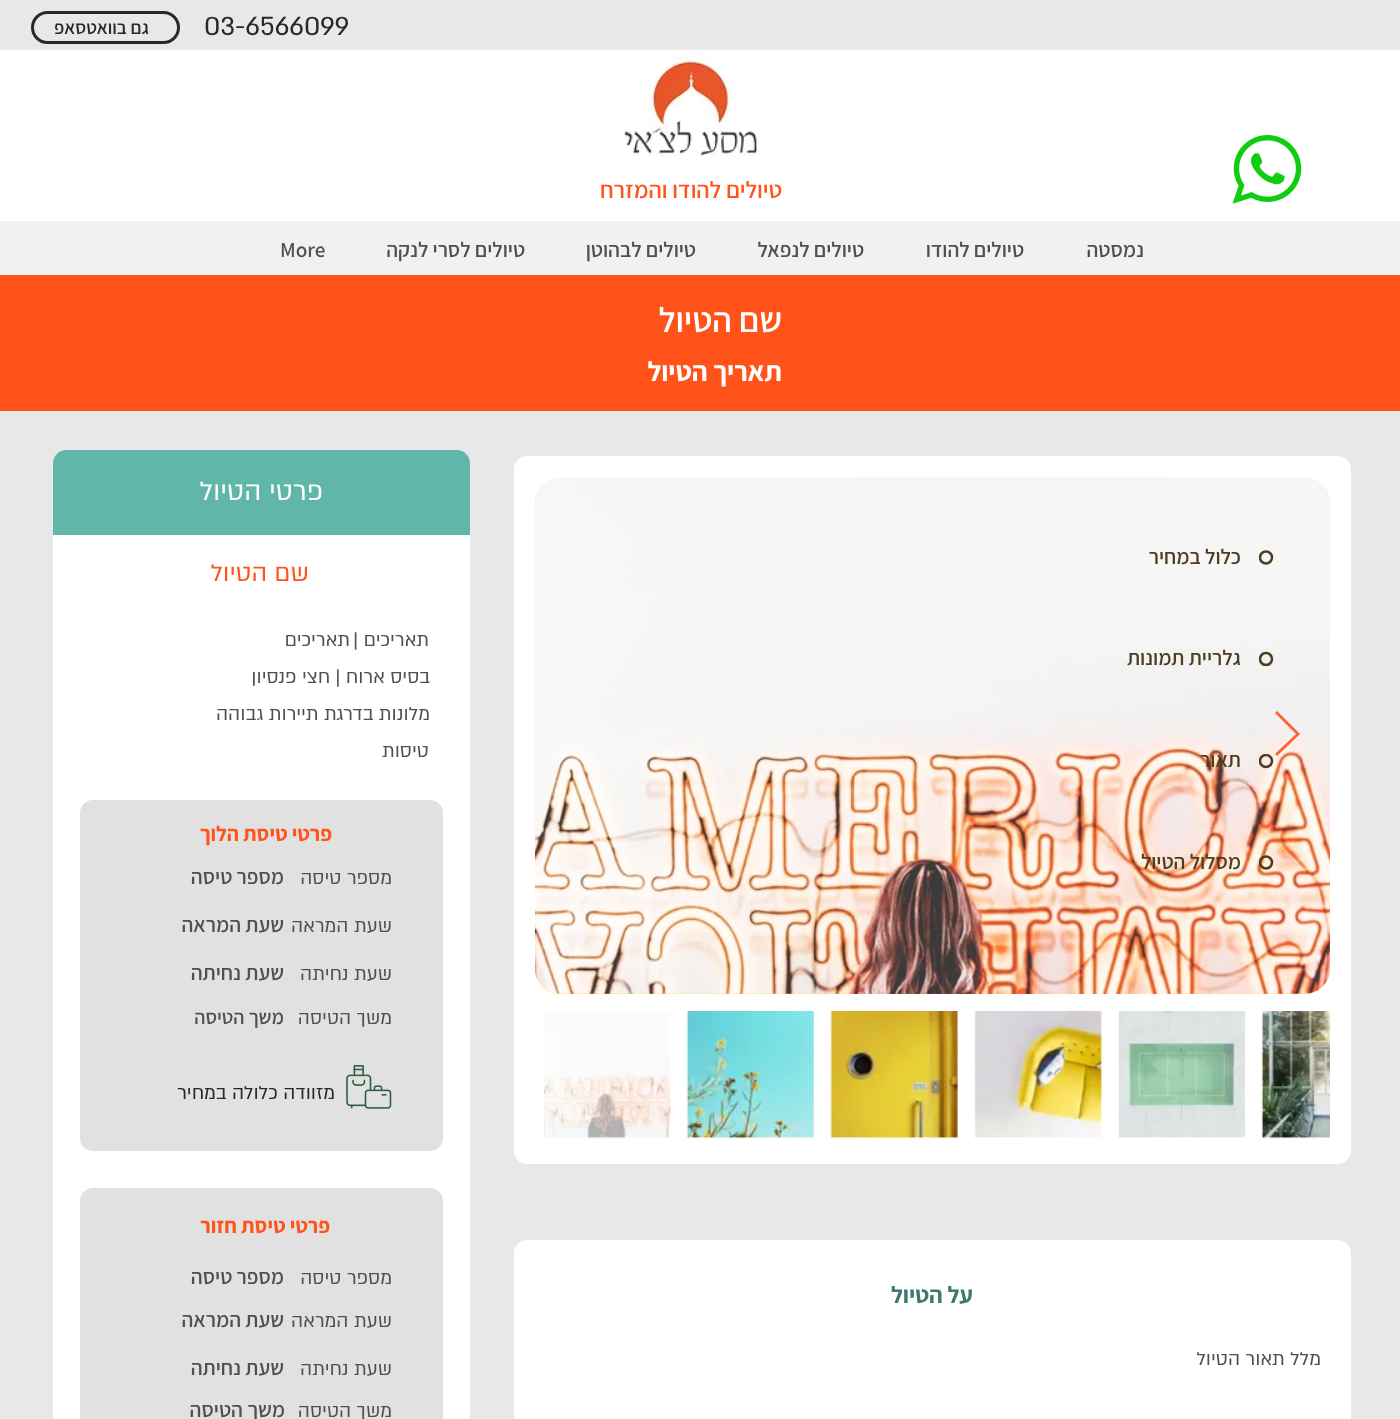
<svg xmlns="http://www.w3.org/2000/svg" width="1400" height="1419">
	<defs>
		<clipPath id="clip1"><rect x="1259" y="550" width="15" height="15" /></clipPath>
		<clipPath id="clip2"><rect x="1259" y="651" width="15" height="15" /></clipPath>
		<clipPath id="clip3"><rect x="1259" y="754" width="15" height="15" /></clipPath>
		<clipPath id="clip4"><rect x="1259" y="855" width="15" height="15" /></clipPath>
	</defs>
	<rect width="100%" height="100%" fill="#E8E8E8" />
	<rect x="0" y="50" width="1400" height="171" fill="#FFFFFF" />
	<image x="1232" y="135" width="70" height="69" href="assets/img1.png" />
	<text x="204" y="35" font-family="'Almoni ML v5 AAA'" font-size="30" fill="#282828">03-6566099</text>
	<rect x="32.5" y="12.5" width="146" height="30" rx="15" fill="none" stroke="#282828" stroke-width="3" />
	<text x="149" y="34" font-family="Assistant" font-size="18.75" font-weight="600" direction="rtl" fill="#282828">גם בוואטסאפ</text>
	<image x="620" y="56" width="139" height="100" href="assets/img2.png" />
	<text x="782" y="198" font-family="Assistant" font-size="23.75" font-weight="600" direction="rtl" fill="#FF531A">טיולים להודו והמזרח</text>
	<rect x="0" y="221" width="1400" height="54" fill="#F1F1F1" />
	<g font-family="Assistant" font-size="21.25" font-weight="600" direction="rtl" fill="#515050">
		<text x="1144" y="257">נמסטה</text>
		<text x="1024" y="257">טיולים להודו</text>
		<text x="864" y="257">טיולים לנפאל</text>
		<text x="696" y="257">טיולים לבהוטן</text>
		<text x="525" y="257">טיולים לסרי לנקה</text>
	</g>
	<text x="280" y="257" font-family="Assistant" font-size="21.25" font-weight="600" fill="#515050">More</text>
	<rect x="0" y="275" width="1400" height="136" fill="#FF531A" />
	<text x="782" y="332" font-family="Assistant" font-size="35" font-weight="600" direction="rtl" fill="#FFFFFF">שם הטיול</text>
	<text x="782" y="381" font-family="Assistant" font-size="27.5" font-weight="700" direction="rtl" fill="#FFFFFF">תאריך הטיול</text>
	<rect x="514" y="1240" width="837" height="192" rx="13" fill="#FFFFFF" />
	<text x="973" y="1303" font-family="Assistant" font-size="23.75" font-weight="700" direction="rtl" fill="#3E7870">על הטיול</text>
	<text x="1321" y="1365" font-family="'Almoni ML v5 AAA'" font-size="21.25" direction="rtl" fill="#515050">מלל תאור הטיול</text>
	<rect x="514" y="456" width="837" height="708" rx="13" fill="#FFFFFF" />
	<rect x="535" y="478" width="795" height="516" rx="25" fill="#FFD358" />
	<image x="535" y="477" width="795" height="517" href="assets/img3.png" />
	<path d="M1275 713L1277 711L1300 734L1277 756L1275 754L1296 734Z" fill="#FF531A" fill-opacity="0.9" />
	<image x="1261" y="1011" width="69" height="128" href="assets/img4.png" />
	<image x="1118" y="1011" width="128" height="127" href="assets/img5.png" />
	<image x="974" y="1011" width="128" height="127" href="assets/img6.png" />
	<image x="830" y="1011" width="128" height="128" href="assets/img7.png" />
	<image x="686" y="1011" width="128" height="128" href="assets/img8.png" />
	<image x="544" y="1011" width="127" height="128" href="assets/img9.png" />
	<rect x="53" y="450" width="417" height="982" rx="13" fill="#FFFFFF" />
	<path d="M66 450H457C464 450 470 456 470 463V535H53V463C53 456 59 450 66 450Z" fill="#5EB5A8" fill-opacity="0.99" />
	<text x="323" y="500" font-family="'Almoni ML v5 AAA'" font-size="30" direction="rtl" fill="#FFFFFF">פרטי הטיול</text>
	<text x="309" y="581" font-family="'Almoni ML v5 AAA'" font-size="27.5" direction="rtl" fill="#FF531A">שם הטיול</text>
	<g font-family="'Almoni ML v5 AAA'" font-size="21.25" direction="rtl" fill="#515050">
		<text x="429" y="646">תאריכים |</text>
		<text x="350" y="646">תאריכים</text>
		<text x="430" y="683">בסיס ארוח | חצי פנסיון</text>
		<text x="430" y="720">מלונות בדרגת תיירות גבוהה</text>
		<text x="429" y="757">טיסות</text>
	</g>
	<rect x="80" y="800" width="363" height="351" rx="13" fill="#E1E1E1" />
	<text x="332" y="841" font-family="Assistant" font-size="21.25" font-weight="700" direction="rtl" fill="#FF531A">פרטי טיסת הלוך</text>
	<text x="392" y="884" font-family="'Almoni ML v5 AAA'" font-size="21.25" direction="rtl" fill="#515050">מספר טיסה</text>
	<text x="284" y="884" font-family="Assistant" font-size="21.25" font-weight="600" direction="rtl" fill="#515050">מספר טיסה</text>
	<text x="392" y="932" font-family="'Almoni ML v5 AAA'" font-size="21.25" direction="rtl" fill="#515050">שעת המראה</text>
	<text x="284" y="932" font-family="Assistant" font-size="21.25" font-weight="600" direction="rtl" fill="#515050">שעת המראה</text>
	<text x="392" y="980" font-family="'Almoni ML v5 AAA'" font-size="21.25" direction="rtl" fill="#515050">שעת נחיתה</text>
	<text x="284" y="980" font-family="Assistant" font-size="21.25" font-weight="600" direction="rtl" fill="#515050">שעת נחיתה</text>
	<text x="392" y="1024" font-family="'Almoni ML v5 AAA'" font-size="21.25" direction="rtl" fill="#515050">משך הטיסה</text>
	<text x="284" y="1024" font-family="Assistant" font-size="20" font-weight="600" direction="rtl" fill="#515050">משך הטיסה</text>
	<image x="346" y="1065" width="46" height="44" href="assets/img10.png" />
	<text x="335" y="1099" font-family="'Almoni ML v5 AAA'" font-size="21.25" direction="rtl" fill="#282828">מזוודה כלולה במחיר</text>
	<rect x="80" y="1188" width="363" height="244" rx="13" fill="#E1E1E1" />
	<text x="330" y="1233" font-family="Assistant" font-size="21.25" font-weight="700" direction="rtl" fill="#FF531A">פרטי טיסת חזור</text>
	<text x="392" y="1284" font-family="'Almoni ML v5 AAA'" font-size="21.25" direction="rtl" fill="#515050">מספר טיסה</text>
	<text x="284" y="1284" font-family="Assistant" font-size="21.25" font-weight="600" direction="rtl" fill="#515050">מספר טיסה</text>
	<text x="392" y="1327" font-family="'Almoni ML v5 AAA'" font-size="21.25" direction="rtl" fill="#515050">שעת המראה</text>
	<text x="284" y="1327" font-family="Assistant" font-size="21.25" font-weight="600" direction="rtl" fill="#515050">שעת המראה</text>
	<text x="392" y="1375" font-family="'Almoni ML v5 AAA'" font-size="21.25" direction="rtl" fill="#515050">שעת נחיתה</text>
	<text x="284" y="1375" font-family="Assistant" font-size="21.25" font-weight="600" direction="rtl" fill="#515050">שעת נחיתה</text>
	<text x="392" y="1417" font-family="'Almoni ML v5 AAA'" font-size="21.25" direction="rtl" fill="#515050">משך הטיסה</text>
	<text x="285" y="1417" font-family="Assistant" font-size="21.25" font-weight="600" direction="rtl" fill="#515050">משך הטיסה</text>
	<g clip-path="url(#clip1)">
		<circle cx="1266" cy="557.5" r="6" fill="none" stroke="#4E3D1E" stroke-width="2.5" />
	</g>
	<text x="1241" y="564" font-family="Assistant" font-size="21.25" font-weight="600" direction="rtl" fill="#4E3D1E">כלול במחיר</text>
	<g clip-path="url(#clip2)">
		<circle cx="1266" cy="659" r="6" fill="none" stroke="#4E3D1E" stroke-width="2.5" />
	</g>
	<text x="1241" y="665" font-family="Assistant" font-size="21.25" font-weight="600" direction="rtl" fill="#4E3D1E">גלריית תמונות</text>
	<g clip-path="url(#clip3)">
		<circle cx="1266" cy="761" r="6" fill="none" stroke="#4E3D1E" stroke-width="2.5" />
	</g>
	<text x="1241" y="767" font-family="Assistant" font-size="21.25" font-weight="600" direction="rtl" fill="#4E3D1E">תאור</text>
	<g clip-path="url(#clip4)">
		<circle cx="1266" cy="862.5" r="6" fill="none" stroke="#4E3D1E" stroke-width="2.5" />
	</g>
	<text x="1241" y="869" font-family="Assistant" font-size="21.25" font-weight="600" direction="rtl" fill="#4E3D1E">מסלול הטיול</text>
</svg>
